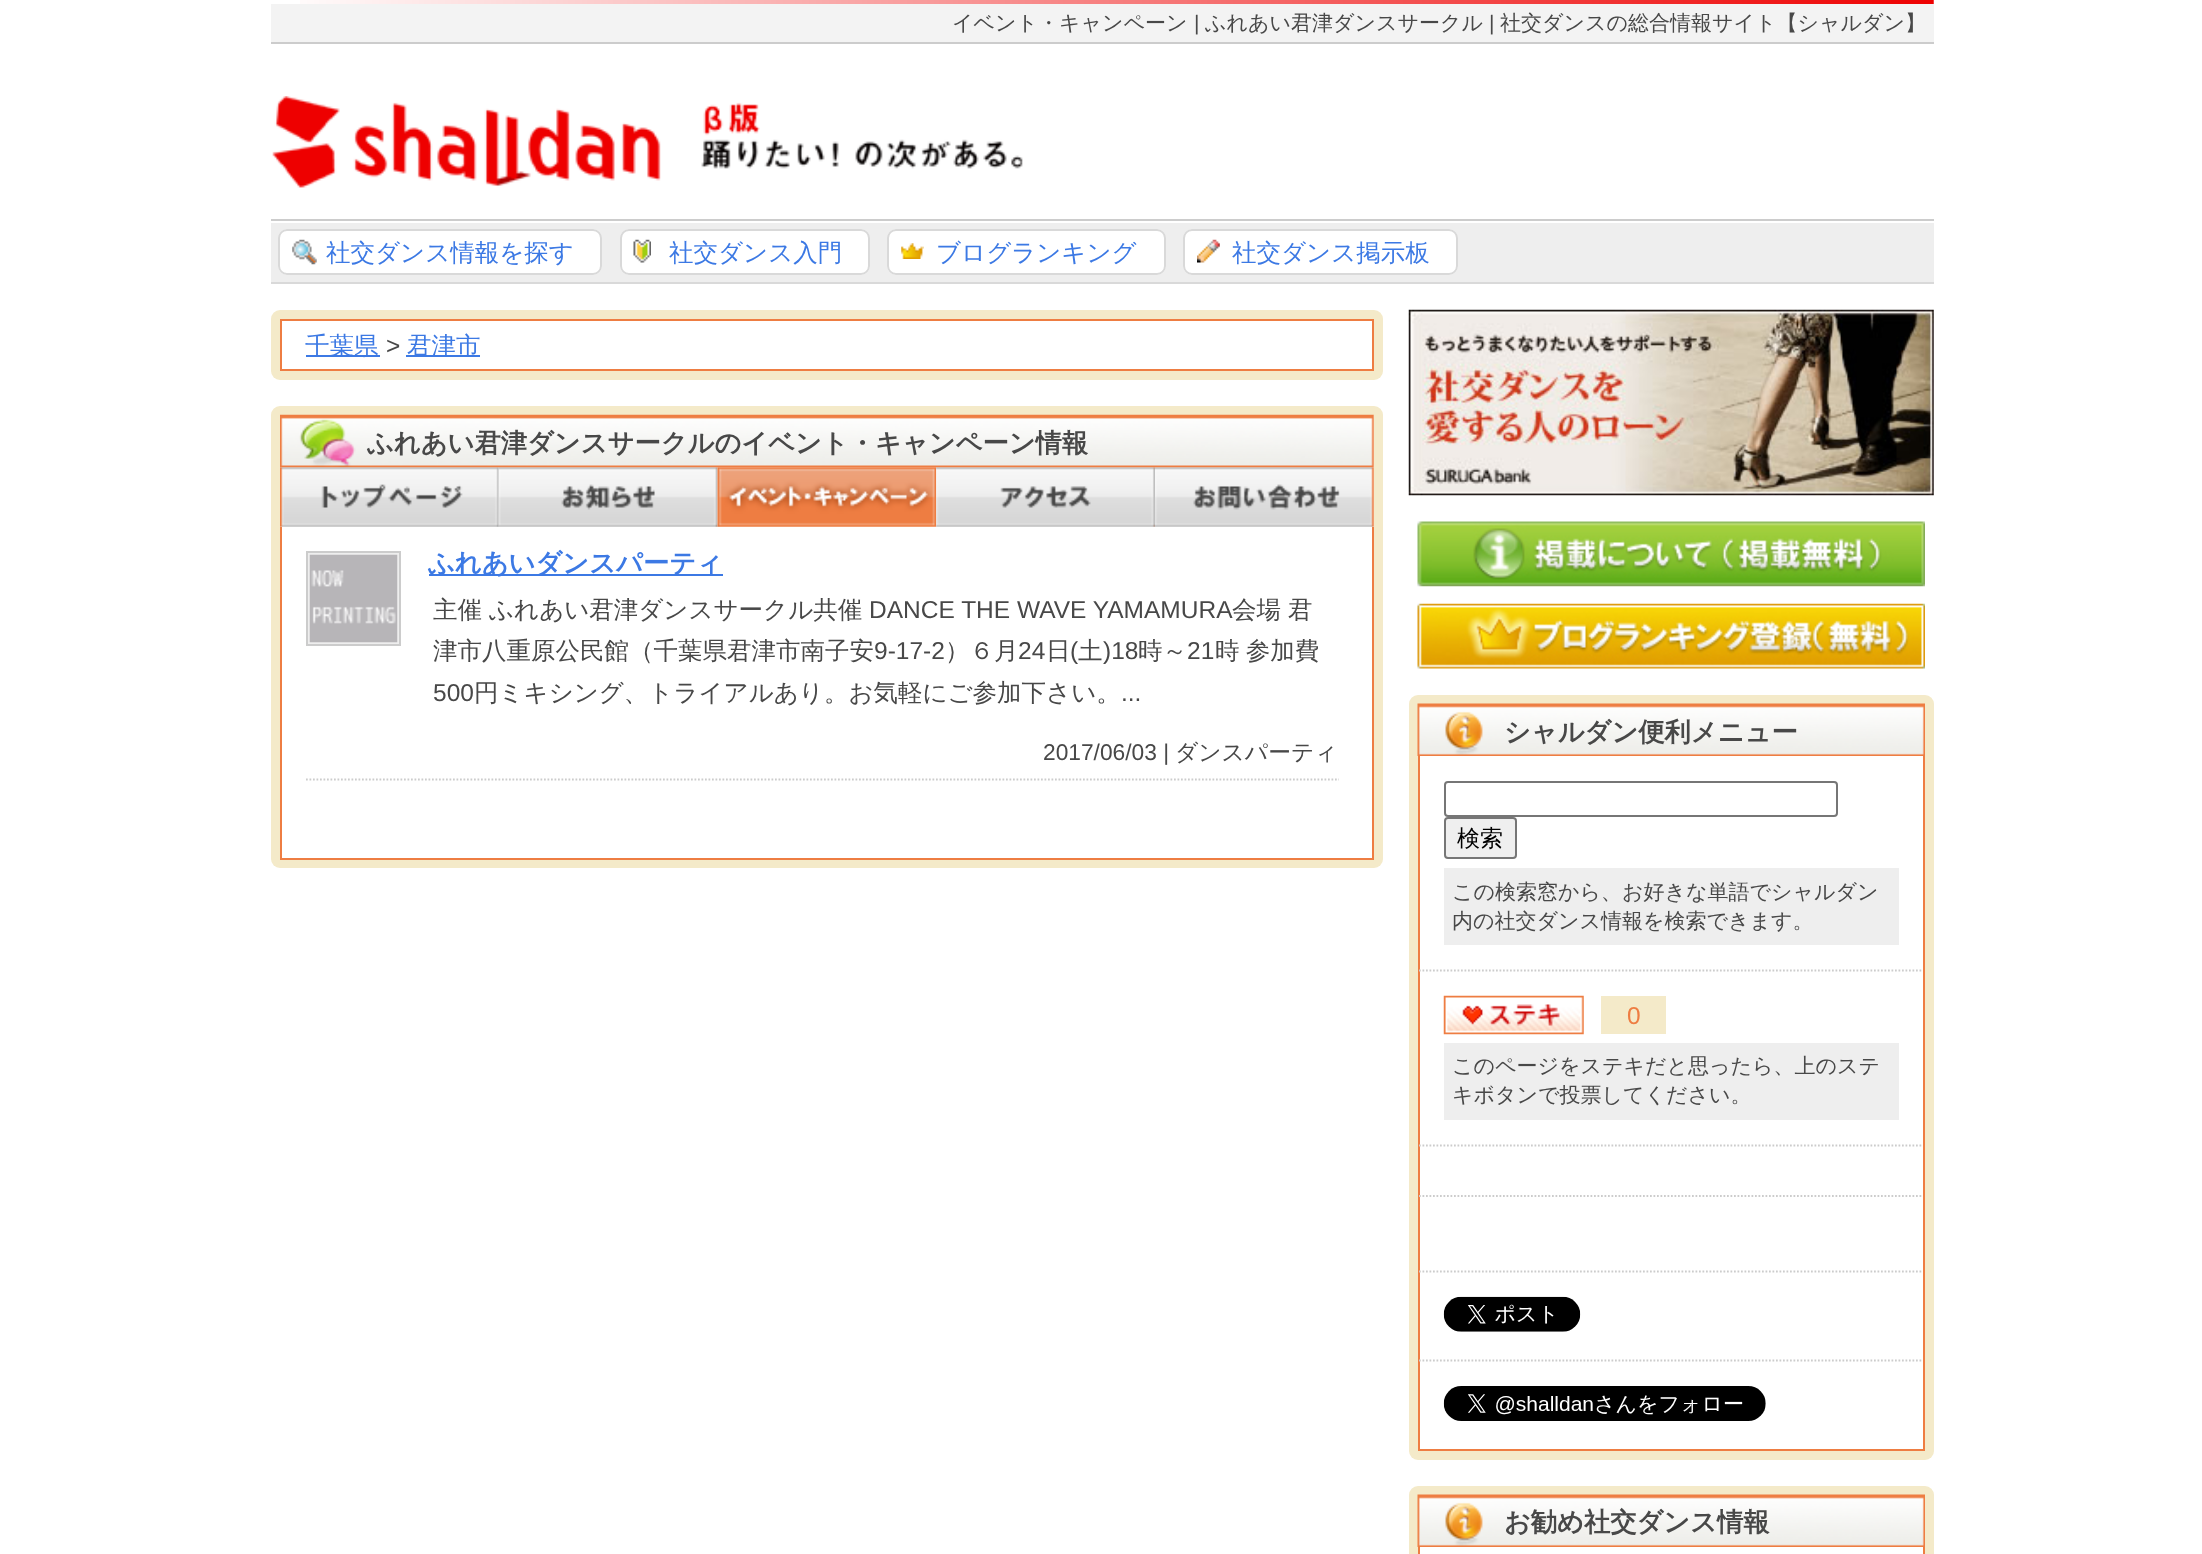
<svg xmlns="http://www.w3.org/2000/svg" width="2202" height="1554">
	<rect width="100%" height="100%" fill="#FFFFFF" />
	<image x="300" y="0" width="1634" height="4" href="assets/img1.png" />
	<rect x="271" y="4" width="1663" height="38" fill="#F3F3F3" />
	<rect x="271" y="42" width="1663" height="2" fill="#CCCCCC" />
	<text x="952" y="30" font-family="WenQuanYi Zen Hei" font-size="21" font-weight="500" fill="#484848">イベント・キャンペーン</text>
	<text x="1194" y="30" font-family="Liberation Sans" font-size="21" fill="#484848">|</text>
	<text x="1205" y="30" font-family="WenQuanYi Zen Hei" font-size="21" font-weight="500" fill="#484848">ふれあい君津ダンスサークル</text>
	<text x="1489" y="30" font-family="Liberation Sans" font-size="21" fill="#484848">|</text>
	<text x="1500" y="30" font-family="WenQuanYi Zen Hei" font-size="21" font-weight="500" fill="#484848">社交ダンスの総合情報サイト【シャルダン】</text>
	<image x="272" y="96" width="751" height="92" href="assets/img2.png" />
	<rect x="271" y="223" width="1663" height="59" fill="#EEEEEE" />
	<rect x="271" y="219" width="1663" height="2" fill="#CCCCCC" />
	<rect x="271" y="282" width="1663" height="2" fill="#D9D9D9" />
	<rect x="278" y="229" width="324" height="46" rx="9" fill="#FFFFFF" />
	<image x="292" y="239" width="25" height="26" href="assets/img3.png" />
	<rect x="279" y="230" width="322" height="44" rx="8" fill="none" stroke="#D9D9D9" stroke-width="2" />
	<text x="326" y="261" font-family="WenQuanYi Zen Hei" font-size="24.5" font-weight="500" fill="#3C79E4">社交ダンス情報を探す</text>
	<rect x="620" y="229" width="250" height="46" rx="9" fill="#FFFFFF" />
	<image x="633" y="239" width="18" height="24" href="assets/img4.png" />
	<rect x="621" y="230" width="248" height="44" rx="8" fill="none" stroke="#D9D9D9" stroke-width="2" />
	<text x="669" y="261" font-family="WenQuanYi Zen Hei" font-size="24.5" font-weight="500" fill="#3C79E4">社交ダンス入門</text>
	<rect x="887" y="229" width="279" height="46" rx="9" fill="#FFFFFF" />
	<image x="901" y="243" width="23" height="16" href="assets/img5.png" />
	<rect x="888" y="230" width="277" height="44" rx="8" fill="none" stroke="#D9D9D9" stroke-width="2" />
	<text x="936" y="261" font-family="WenQuanYi Zen Hei" font-size="24.5" font-weight="500" fill="#3C79E4">ブログランキング</text>
	<rect x="1183" y="229" width="275" height="46" rx="9" fill="#FFFFFF" />
	<image x="1197" y="239" width="23" height="24" href="assets/img6.png" />
	<rect x="1184" y="230" width="273" height="44" rx="8" fill="none" stroke="#D9D9D9" stroke-width="2" />
	<text x="1232" y="261" font-family="WenQuanYi Zen Hei" font-size="24.5" font-weight="500" fill="#3C79E4">社交ダンス掲示板</text>
	<rect x="271" y="310" width="1112" height="70" rx="9" fill="#F4EAC9" />
	<rect x="281" y="320" width="1092" height="50" fill="#FFFFFF" stroke="#EE7D42" stroke-width="2" />
	<rect x="306" y="355" width="74" height="2" fill="#3C79E4" />
	<text x="305" y="354" font-family="WenQuanYi Zen Hei" font-size="24.5" font-weight="500" fill="#3C79E4">千葉県</text>
	<text x="386" y="354" font-family="Liberation Sans" font-size="24.5" fill="#484848">&gt;</text>
	<rect x="406" y="355" width="74" height="2" fill="#3C79E4" />
	<text x="407" y="354" font-family="WenQuanYi Zen Hei" font-size="24.5" font-weight="500" fill="#3C79E4">君津市</text>
	<rect x="271" y="406" width="1112" height="462" rx="9" fill="#F4EAC9" />
	<rect x="280" y="415" width="1094" height="443" fill="#FFFFFF" />
	<image x="280" y="467" width="219" height="60" href="assets/img8.png" />
	<image x="498" y="467" width="220" height="60" href="assets/img9.png" />
	<image x="717" y="467" width="220" height="60" href="assets/img10.png" />
	<image x="936" y="467" width="219" height="60" href="assets/img11.png" />
	<image x="1155" y="467" width="219" height="60" href="assets/img12.png" />
	<image x="280" y="414" width="1094" height="54" href="assets/img7.png" />
	<text x="367" y="452" font-family="WenQuanYi Zen Hei" font-size="26.25" font-weight="700" fill="#484848">ふれあい君津ダンスサークルのイベント・キャンペーン情報</text>
	<rect x="1372" y="527" width="2" height="332" fill="#EE7D42" />
	<rect x="280" y="858" width="1094" height="2" fill="#EE7D42" />
	<rect x="280" y="527" width="2" height="332" fill="#EE7D42" />
	<path d="M306 779.5H1339" fill="none" stroke="#CCCCCC" stroke-width="1.8" stroke-dasharray="1.75 1.75" />
	<rect x="307" y="552" width="93" height="93" fill="none" stroke="#CCCCCC" stroke-width="2" />
	<rect x="309" y="554" width="89" height="89" fill="none" stroke="#EEEEEE" stroke-width="2" />
	<image x="309" y="554" width="89" height="89" href="assets/img13.png" />
	<rect x="429" y="574" width="294" height="2" fill="#3C79E4" />
	<text x="428" y="572" font-family="WenQuanYi Zen Hei" font-size="26.25" font-weight="700" fill="#3C79E4">ふれあいダンスパーティ</text>
	<g font-family="WenQuanYi Zen Hei" font-size="24.5" font-weight="500" fill="#484848">
		<text x="433" y="618">主催</text>
		<text x="489" y="618">ふれあい君津ダンスサークル共催</text>
	</g>
	<text x="869" y="618" font-family="Liberation Sans" font-size="24.5" fill="#484848">DANCE THE WAVE YAMAMURA</text>
	<g font-family="WenQuanYi Zen Hei" font-size="24.5" font-weight="500" fill="#484848">
		<text x="1232" y="618">会場</text>
		<text x="1288" y="618">君</text>
		<text x="433" y="659">津市八重原公民館（千葉県君津市南子安</text>
	</g>
	<text x="874" y="659" font-family="Liberation Sans" font-size="24.5" fill="#484848">9-17-2</text>
	<text x="945" y="659" font-family="WenQuanYi Zen Hei" font-size="24.5" font-weight="500" fill="#484848">）６月</text>
	<text x="1018" y="659" font-family="Liberation Sans" font-size="24.5" fill="#484848">24</text>
	<text x="1046" y="659" font-family="WenQuanYi Zen Hei" font-size="24.5" font-weight="500" fill="#484848">日</text>
	<text x="1070" y="659" font-family="Liberation Sans" font-size="24.5" fill="#484848">(</text>
	<text x="1078" y="659" font-family="WenQuanYi Zen Hei" font-size="24.5" font-weight="500" fill="#484848">土</text>
	<text x="1103" y="659" font-family="Liberation Sans" font-size="24.5" fill="#484848">)18</text>
	<text x="1138" y="659" font-family="WenQuanYi Zen Hei" font-size="24.5" font-weight="500" fill="#484848">時～</text>
	<text x="1187" y="659" font-family="Liberation Sans" font-size="24.5" fill="#484848">21</text>
	<text x="1215" y="659" word-spacing="-1" font-family="WenQuanYi Zen Hei" font-size="24.5" font-weight="500" fill="#484848">時 参加費</text>
	<text x="433" y="701" font-family="Liberation Sans" font-size="24.5" fill="#484848">500</text>
	<text x="474" y="701" font-family="WenQuanYi Zen Hei" font-size="24.5" font-weight="500" fill="#484848">円ミキシング、トライアルあり。お気軽にご参加下さい。</text>
	<text x="1121" y="701" font-family="Liberation Sans" font-size="24.5" fill="#484848">...</text>
	<text x="1043" y="760" font-family="Liberation Sans" font-size="22.75" fill="#484848">2017/06/03 |</text>
	<text x="1175" y="760" font-family="WenQuanYi Zen Hei" font-size="22.75" font-weight="500" fill="#484848">ダンスパーティ</text>
	<image x="1408" y="309" width="526" height="187" href="assets/img14.png" />
	<image x="1417" y="521" width="508" height="66" href="assets/img15.png" />
	<image x="1417" y="603" width="508" height="66" href="assets/img16.png" />
	<rect x="1409" y="695" width="525" height="765" rx="9" fill="#F4EAC9" />
	<rect x="1420" y="756" width="503" height="693" fill="#FFFFFF" />
	<image x="1417" y="703" width="508" height="53" href="assets/img17.png" />
	<text x="1504" y="741" font-family="WenQuanYi Zen Hei" font-size="26.25" font-weight="700" fill="#484848">シャルダン便利メニュー</text>
	<rect x="1923" y="756" width="2" height="695" fill="#EE7D42" />
	<rect x="1418" y="1449" width="507" height="2" fill="#EE7D42" />
	<rect x="1418" y="756" width="2" height="695" fill="#EE7D42" />
	<rect x="1445" y="782" width="392" height="34" rx="3" fill="none" stroke="#767676" stroke-width="2" />
	<rect x="1445" y="818" width="71" height="40" rx="3" fill="#EFEFEF" stroke="#767676" stroke-width="2" />
	<text x="1457" y="846" font-family="WenQuanYi Zen Hei" font-size="23" font-weight="500" fill="#000000">検索</text>
	<rect x="1444" y="868" width="455" height="77" fill="#EEEEEE" />
	<g font-family="WenQuanYi Zen Hei" font-size="21" font-weight="500" fill="#484848">
		<text x="1452" y="899">この検索窓から、お好きな単語でシャルダン</text>
		<text x="1452" y="928">内の社交ダンス情報を検索できます。</text>
	</g>
	<path d="M1419 970.5H1923" fill="none" stroke="#CCCCCC" stroke-width="1.8" stroke-dasharray="1.75 1.75" />
	<image x="1443" y="995" width="141" height="40" href="assets/img18.png" />
	<rect x="1601" y="996" width="65" height="38" fill="#F4EAC9" />
	<text x="1627" y="1024" font-family="Liberation Sans" font-size="24.5" fill="#EE7D42">0</text>
	<rect x="1444" y="1043" width="455" height="77" fill="#EEEEEE" />
	<g font-family="WenQuanYi Zen Hei" font-size="21" font-weight="500" fill="#484848">
		<text x="1452" y="1073">このページをステキだと思ったら、上のステ</text>
		<text x="1452" y="1102">キボタンで投票してください。</text>
	</g>
	<path d="M1419 1145.5H1923" fill="none" stroke="#CCCCCC" stroke-width="1.8" stroke-dasharray="1.75 1.75" />
	<path d="M1419 1196H1923" fill="none" stroke="#CCCCCC" stroke-width="1.8" stroke-dasharray="1.75 1.75" />
	<path d="M1419 1271.5H1923" fill="none" stroke="#CCCCCC" stroke-width="1.8" stroke-dasharray="1.75 1.75" />
	<image x="1443" y="1296" width="138" height="36" href="assets/img19.png" />
	<path d="M1419 1360.5H1923" fill="none" stroke="#CCCCCC" stroke-width="1.8" stroke-dasharray="1.75 1.75" />
	<image x="1443" y="1386" width="323" height="35" href="assets/img20.png" />
	<rect x="1409" y="1486" width="525" height="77" rx="9" fill="#F4EAC9" />
	<rect x="1420" y="1547" width="503" height="7" fill="#FFFFFF" />
	<image x="1417" y="1494" width="508" height="53" href="assets/img17.png" />
	<text x="1504" y="1531" font-family="WenQuanYi Zen Hei" font-size="26.25" font-weight="700" fill="#484848">お勧め社交ダンス情報</text>
	<rect x="1923" y="1547" width="2" height="7" fill="#EE7D42" />
	<rect x="1418" y="1547" width="2" height="7" fill="#EE7D42" />
</svg>
